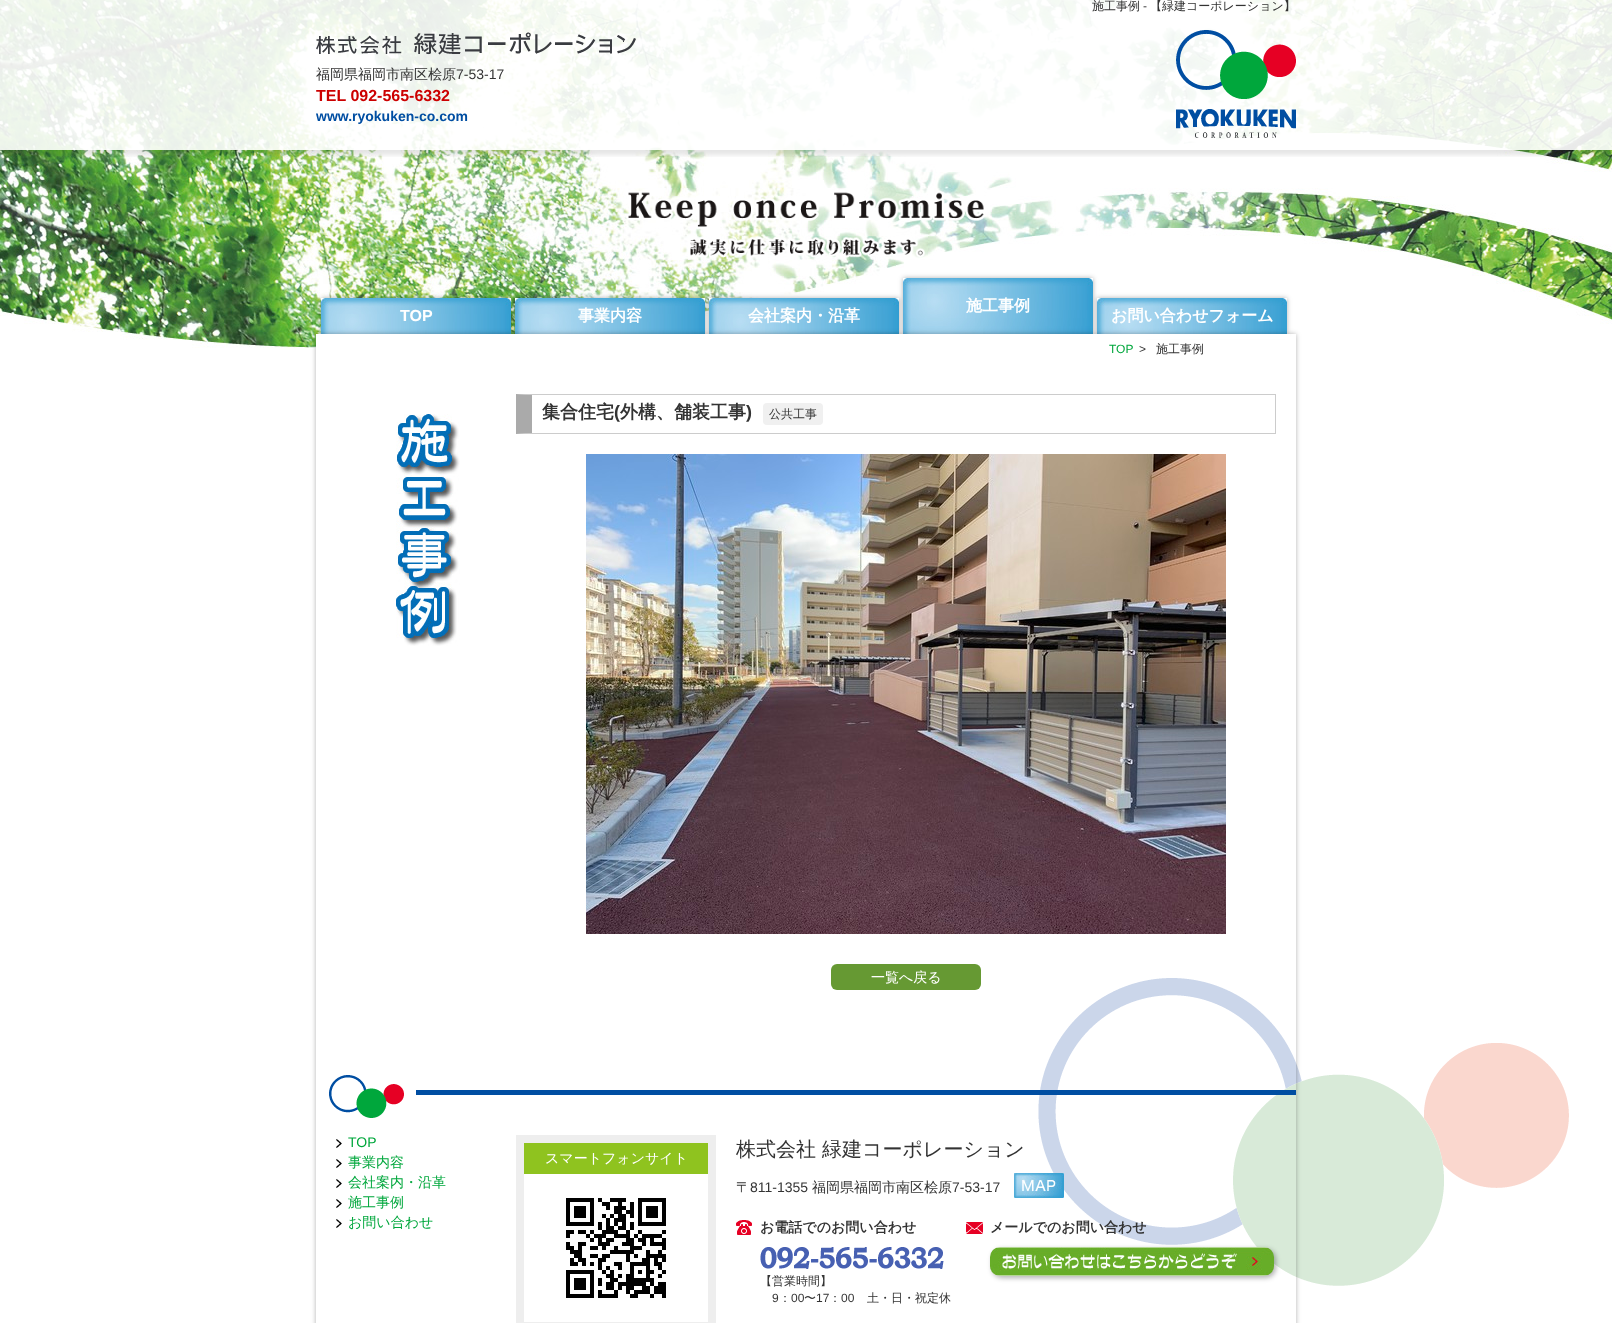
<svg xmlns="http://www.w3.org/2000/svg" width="1612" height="1323">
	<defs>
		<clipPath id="clip1"><rect x="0" y="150" width="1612" height="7" /></clipPath>
		<clipPath id="clip2"><path d="M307 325H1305V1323H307ZM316 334H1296V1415H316Z" clip-rule="evenodd" /></clipPath>
	</defs>
	<rect width="100%" height="100%" fill="#FFFFFF" />
	<image x="0" y="0" width="1612" height="1286" href="assets/img1.png" />
	<g clip-path="url(#clip1)">
		<rect x="0" y="5" width="1612" height="150" fill="#000000" fill-opacity="0.1" filter="blur(2.5px)" />
	</g>
	<rect x="0" y="0" width="1612" height="150" fill="#FFFFFF" fill-opacity="0.9" />
	<image x="1176" y="30" width="120" height="108" href="assets/img2.png" />
	<text x="1092" y="10" font-family="WenQuanYi Zen Hei" font-size="12" font-weight="500" fill="#333333">施工事例</text>
	<text x="1143" y="10" font-family="Liberation Sans" font-size="12" fill="#333333">-</text>
	<text x="1150" y="10" font-family="WenQuanYi Zen Hei" font-size="12" font-weight="500" fill="#333333">【緑建コーポレーション】</text>
	<image x="316" y="32" width="320" height="23" href="assets/img3.png" />
	<text x="316" y="79" font-family="WenQuanYi Zen Hei" font-size="14" font-weight="500" fill="#333333">福岡県福岡市南区桧原</text>
	<text x="456" y="79" font-family="Liberation Sans" font-size="14" fill="#333333">7-53-17</text>
	<text x="316" y="101" font-family="Liberation Sans" font-size="16" font-weight="700" fill="#CC0000">TEL 092-565-6332</text>
	<text x="316" y="121" font-family="Liberation Sans" font-size="14" font-weight="700" fill="#004EA2">www.ryokuken-co.com</text>
	<image x="626" y="190" width="359" height="68" href="assets/img4.png" />
	<rect x="321" y="298" width="190" height="36" fill="#000000" fill-opacity="0.3" filter="blur(2.5px)" />
	<image x="321" y="298" width="190" height="36" href="assets/img5.png" />
	<text x="400" y="321" font-family="Liberation Sans" font-size="16" font-weight="700" fill="#FFFFFF">TOP</text>
	<rect x="515" y="298" width="190" height="36" fill="#000000" fill-opacity="0.3" filter="blur(2.5px)" />
	<image x="515" y="298" width="190" height="36" href="assets/img5.png" />
	<text x="578" y="321" font-family="WenQuanYi Zen Hei" font-size="16" font-weight="700" fill="#FFFFFF">事業内容</text>
	<rect x="709" y="298" width="190" height="36" fill="#000000" fill-opacity="0.3" filter="blur(2.5px)" />
	<image x="709" y="298" width="190" height="36" href="assets/img5.png" />
	<text x="748" y="321" font-family="WenQuanYi Zen Hei" font-size="16" font-weight="700" fill="#FFFFFF">会社案内・沿革</text>
	<rect x="903" y="278" width="190" height="56" fill="#000000" fill-opacity="0.3" filter="blur(2.5px)" />
	<image x="903" y="278" width="190" height="56" href="assets/img6.png" />
	<text x="966" y="311" font-family="WenQuanYi Zen Hei" font-size="16" font-weight="700" fill="#FFFFFF">施工事例</text>
	<rect x="1097" y="298" width="190" height="36" fill="#000000" fill-opacity="0.3" filter="blur(2.5px)" />
	<image x="1097" y="298" width="190" height="36" href="assets/img5.png" />
	<text x="1111" y="321" font-family="WenQuanYi Zen Hei" font-size="16" font-weight="700" fill="#FFFFFF">お問い合わせフォーム</text>
	<g clip-path="url(#clip2)">
		<rect x="316" y="334" width="980" height="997" fill="#000000" fill-opacity="0.3" filter="blur(2.5px)" />
	</g>
	<image x="396" y="414" width="64" height="232" href="assets/img7.png" />
	<rect x="316" y="334" width="830" height="14" fill="#FFFFFF" />
	<text x="1109" y="353" font-family="Liberation Sans" font-size="12" fill="#00A73C">TOP</text>
	<text x="1139" y="353" font-family="Liberation Sans" font-size="12" fill="#333333">&gt;</text>
	<rect x="1146" y="334" width="144" height="5" fill="#FFFFFF" />
	<text x="1156" y="353" font-family="WenQuanYi Zen Hei" font-size="12" font-weight="500" fill="#333333">施工事例</text>
	<path d="M516 394H1276L1275 395H532Z" fill="#CCCCCC" />
	<rect x="1275" y="394" width="1" height="40" fill="#CCCCCC" />
	<path d="M1276 434H516L532 433H1275Z" fill="#CCCCCC" />
	<path d="M516 434V394L532 395V433Z" fill="#AAAAAA" />
	<text x="542" y="418" font-family="WenQuanYi Zen Hei" font-size="18" font-weight="700" fill="#333333">集合住宅</text>
	<text x="614" y="418" font-family="Liberation Sans" font-size="18" font-weight="700" fill="#333333">(</text>
	<text x="620" y="418" font-family="WenQuanYi Zen Hei" font-size="18" font-weight="700" fill="#333333">外構、舗装工事</text>
	<text x="746" y="418" font-family="Liberation Sans" font-size="18" font-weight="700" fill="#333333">)</text>
	<rect x="763" y="403" width="60" height="22" rx="4" fill="#F0F0F0" />
	<text x="769" y="418" font-family="WenQuanYi Zen Hei" font-size="12" font-weight="500" fill="#333333">公共工事</text>
	<image x="586" y="454" width="640" height="480" href="assets/img8.png" />
	<rect x="831" y="964" width="150" height="26" rx="6" fill="#669933" />
	<text x="871" y="982" font-family="WenQuanYi Zen Hei" font-size="14" font-weight="500" fill="#FFFFFF">一覧へ戻る</text>
	<rect x="416" y="1090" width="880" height="5" fill="#004EA2" />
	<image x="316" y="1075" width="100" height="43" href="assets/img9.png" />
	<image x="336" y="1139" width="6" height="9" href="assets/img10.png" />
	<text x="348" y="1147" font-family="Liberation Sans" font-size="14" fill="#00A73C">TOP</text>
	<image x="336" y="1159" width="6" height="9" href="assets/img10.png" />
	<text x="348" y="1167" font-family="WenQuanYi Zen Hei" font-size="14" font-weight="500" fill="#00A73C">事業内容</text>
	<image x="336" y="1179" width="6" height="9" href="assets/img10.png" />
	<text x="348" y="1187" font-family="WenQuanYi Zen Hei" font-size="14" font-weight="500" fill="#00A73C">会社案内・沿革</text>
	<image x="336" y="1199" width="6" height="9" href="assets/img10.png" />
	<text x="348" y="1207" font-family="WenQuanYi Zen Hei" font-size="14" font-weight="500" fill="#00A73C">施工事例</text>
	<image x="336" y="1219" width="6" height="9" href="assets/img10.png" />
	<text x="348" y="1227" font-family="WenQuanYi Zen Hei" font-size="14" font-weight="500" fill="#00A73C">お問い合わせ</text>
	<rect x="520" y="1139" width="192" height="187" fill="none" stroke="#EEEEEE" stroke-width="8" />
	<rect x="524" y="1143" width="184" height="31" fill="#8FC31F" />
	<text x="545" y="1163" font-family="WenQuanYi Zen Hei" font-size="14" font-weight="500" fill="#FFFFFF">スマートフォンサイト</text>
	<image x="566" y="1198" width="100" height="100" href="assets/img11.png" />
	<text x="736" y="1156" font-family="WenQuanYi Zen Hei" font-size="20" font-weight="500" fill="#333333">株式会社 緑建コーポレーション</text>
	<text x="736" y="1192" font-family="WenQuanYi Zen Hei" font-size="14" font-weight="500" fill="#333333">〒</text>
	<text x="750" y="1192" font-family="Liberation Sans" font-size="14" fill="#333333">811-1355</text>
	<text x="812" y="1192" font-family="WenQuanYi Zen Hei" font-size="14" font-weight="500" fill="#333333">福岡県福岡市南区桧原</text>
	<text x="952" y="1192" font-family="Liberation Sans" font-size="14" fill="#333333">7-53-17</text>
	<image x="1014" y="1173" width="50" height="25" href="assets/img12.png" />
	<image x="736" y="1220" width="16" height="15" href="assets/img13.png" />
	<text x="760" y="1232" font-family="WenQuanYi Zen Hei" font-size="14" font-weight="700" fill="#333333">お電話でのお問い合わせ</text>
	<image x="760" y="1247" width="184" height="22" href="assets/img14.png" />
	<text x="760" y="1285" font-family="WenQuanYi Zen Hei" font-size="12" font-weight="500" fill="#333333">【営業時間】</text>
	<text x="772" y="1302" font-family="Liberation Sans" font-size="12" fill="#333333">9</text>
	<text x="779" y="1302" font-family="WenQuanYi Zen Hei" font-size="12" font-weight="500" fill="#333333">：</text>
	<text x="791" y="1302" font-family="Liberation Sans" font-size="12" fill="#333333">00</text>
	<text x="804" y="1302" font-family="WenQuanYi Zen Hei" font-size="12" font-weight="500" fill="#333333">〜</text>
	<text x="816" y="1302" font-family="Liberation Sans" font-size="12" fill="#333333">17</text>
	<text x="829" y="1302" font-family="WenQuanYi Zen Hei" font-size="12" font-weight="500" fill="#333333">：</text>
	<text x="841" y="1302" font-family="Liberation Sans" font-size="12" fill="#333333">00</text>
	<text x="867" y="1302" font-family="WenQuanYi Zen Hei" font-size="12" font-weight="500" fill="#333333">土・日・祝定休</text>
	<image x="966" y="1222" width="17" height="12" href="assets/img15.png" />
	<text x="990" y="1232" font-family="WenQuanYi Zen Hei" font-size="14" font-weight="700" fill="#333333">メールでのお問い合わせ</text>
	<rect x="992" y="1249" width="284" height="29" rx="10" fill="#000000" fill-opacity="0.3" filter="blur(2.5px)" />
	<image x="990" y="1247" width="284" height="29" href="assets/img16.png" />
</svg>
